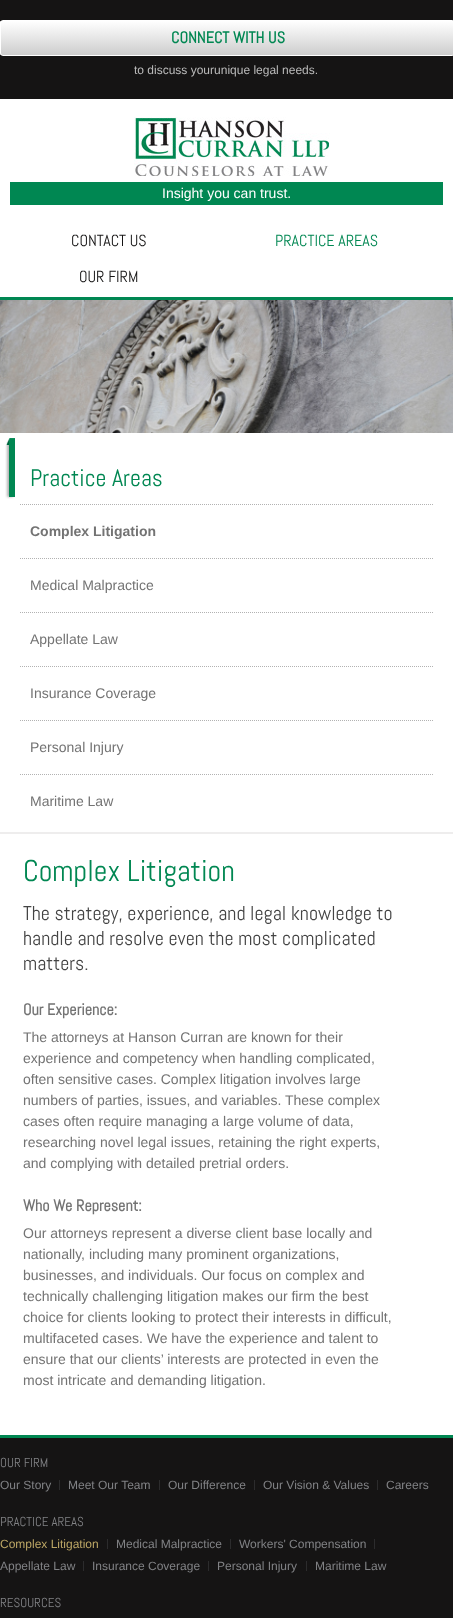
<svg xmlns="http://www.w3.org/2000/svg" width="453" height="1618">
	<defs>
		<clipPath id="clip1"><rect x="0" y="20" width="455" height="36" rx="3" /></clipPath>
		<linearGradient id="g1" gradientUnits="userSpaceOnUse" x1="1" y1="55" x2="1" y2="21"><stop offset="0" stop-color="#CDCDCD" /><stop offset="1" stop-color="#FFFFFF" /></linearGradient>
	</defs>
	<rect width="100%" height="100%" fill="#151414" />
	<g clip-path="url(#clip1)">
		<rect x="0" y="21" width="453" height="34" fill="url(#g1)" />
	</g>
	<rect x="0.5" y="20.5" width="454" height="35" rx="2.5" fill="none" stroke="#FFFFFF" />
	<text x="171" y="43" font-family="Abel" font-size="16" font-weight="700" fill="#008752">CONNECT WITH US</text>
	<text x="134" y="74" font-family="Liberation Sans" font-size="12" fill="#BBBBBB">to discuss yourunique legal needs.</text>
	<rect x="0" y="99" width="453" height="198" fill="#FFFFFF" />
	<rect x="0" y="297" width="453" height="3" fill="#008752" />
	<image x="134" y="117" width="196" height="59" href="assets/img1.png" />
	<rect x="10" y="182" width="433" height="23" fill="#008752" />
	<text x="162" y="198" font-family="Liberation Sans" font-size="14" fill="#FFFFFF">Insight you can trust.</text>
	<text x="71" y="246" font-family="Abel" font-size="16" fill="#151414">CONTACT US</text>
	<text x="275" y="246" font-family="Abel" font-size="16" fill="#008752">PRACTICE AREAS</text>
	<text x="79" y="282" font-family="Abel" font-size="16" fill="#151414">OUR FIRM</text>
	<rect x="0" y="433" width="453" height="1002" fill="#FFFFFF" />
	<image x="0" y="300" width="453" height="133" href="assets/img2.png" />
	<rect x="0" y="832" width="453" height="2" fill="#EEEDED" />
	<image x="5" y="438" width="10" height="61" href="assets/img3.png" />
	<path d="M20 504.5H433" fill="none" stroke="#B2B2B2" stroke-dasharray="1 1" />
	<text x="30" y="486" font-family="Abel" font-size="24" fill="#008752">Practice Areas</text>
	<path d="M20 558.5H433" fill="none" stroke="#B2B2B2" stroke-dasharray="1 1" />
	<text x="30" y="536" font-family="Liberation Sans" font-size="14" font-weight="700" fill="#737373">Complex Litigation</text>
	<path d="M20 612.5H433" fill="none" stroke="#B2B2B2" stroke-dasharray="1 1" />
	<text x="30" y="590" font-family="Liberation Sans" font-size="14" fill="#737373">Medical Malpractice</text>
	<path d="M20 666.5H433" fill="none" stroke="#B2B2B2" stroke-dasharray="1 1" />
	<text x="30" y="644" font-family="Liberation Sans" font-size="14" fill="#737373">Appellate Law</text>
	<path d="M20 720.5H433" fill="none" stroke="#B2B2B2" stroke-dasharray="1 1" />
	<text x="30" y="698" font-family="Liberation Sans" font-size="14" fill="#737373">Insurance Coverage</text>
	<path d="M20 774.5H433" fill="none" stroke="#B2B2B2" stroke-dasharray="1 1" />
	<g font-family="Liberation Sans" font-size="14" fill="#737373">
		<text x="30" y="752">Personal Injury</text>
		<text x="30" y="806">Maritime Law</text>
	</g>
	<text x="23" y="881" font-family="Abel" font-size="30" fill="#008752">Complex Litigation</text>
	<g font-family="Abel" font-size="20" fill="#444444">
		<text x="23" y="920">The strategy, experience, and legal knowledge to</text>
		<text x="23" y="945">handle and resolve even the most complicated</text>
		<text x="23" y="970">matters.</text>
	</g>
	<text x="23" y="1015" font-family="Abel" font-size="16" font-weight="700" fill="#737373">Our Experience:</text>
	<g font-family="Liberation Sans" font-size="14" fill="#737373">
		<text x="23" y="1042">The attorneys at Hanson Curran are known for their</text>
		<text x="23" y="1063">experience and competency when handling complicated,</text>
		<text x="23" y="1084">often sensitive cases. Complex litigation involves large</text>
		<text x="23" y="1105">numbers of parties, issues, and variables. These complex</text>
		<text x="23" y="1126">cases often require managing a large volume of data,</text>
		<text x="23" y="1147">researching novel legal issues, retaining the right experts,</text>
		<text x="23" y="1168">and complying with detailed pretrial orders.</text>
	</g>
	<text x="23" y="1211" font-family="Abel" font-size="16" font-weight="700" fill="#737373">Who We Represent:</text>
	<g font-family="Liberation Sans" font-size="14" fill="#737373">
		<text x="23" y="1238">Our attorneys represent a diverse client base locally and</text>
		<text x="23" y="1259">nationally, including many prominent organizations,</text>
		<text x="23" y="1280">businesses, and individuals. Our focus on complex and</text>
		<text x="23" y="1301">technically challenging litigation makes our firm the best</text>
		<text x="23" y="1322">choice for clients looking to protect their interests in difficult,</text>
		<text x="23" y="1343">multifaceted cases. We have the experience and talent to</text>
		<text x="23" y="1364">ensure that our clients’ interests are protected in even the</text>
		<text x="23" y="1385">most intricate and demanding litigation.</text>
	</g>
	<rect x="0" y="1435" width="453" height="3" fill="#008752" />
	<text x="0" y="1467" font-family="Abel" font-size="13" fill="#818285">OUR FIRM</text>
	<rect x="59" y="1480" width="1" height="10" fill="#2C2C2D" />
	<text x="0" y="1489" font-family="Liberation Sans" font-size="12" fill="#818285">Our Story</text>
	<rect x="159" y="1480" width="1" height="10" fill="#2C2C2D" />
	<text x="68" y="1489" font-family="Liberation Sans" font-size="12" fill="#818285">Meet Our Team</text>
	<rect x="254" y="1480" width="1" height="10" fill="#2C2C2D" />
	<text x="168" y="1489" font-family="Liberation Sans" font-size="12" fill="#818285">Our Difference</text>
	<rect x="377" y="1480" width="1" height="10" fill="#2C2C2D" />
	<g font-family="Liberation Sans" font-size="12" fill="#818285">
		<text x="263" y="1489">Our Vision &amp; Values</text>
		<text x="386" y="1489">Careers</text>
	</g>
	<text x="0" y="1526" font-family="Abel" font-size="13" fill="#818285">PRACTICE AREAS</text>
	<rect x="107" y="1539" width="1" height="10" fill="#2C2C2D" />
	<text x="0" y="1548" font-family="Liberation Sans" font-size="12" fill="#BCA665">Complex Litigation</text>
	<rect x="230" y="1539" width="1" height="10" fill="#2C2C2D" />
	<text x="116" y="1548" font-family="Liberation Sans" font-size="12" fill="#818285">Medical Malpractice</text>
	<rect x="374" y="1539" width="1" height="10" fill="#2C2C2D" />
	<text x="239" y="1548" font-family="Liberation Sans" font-size="12" fill="#818285">Workers' Compensation</text>
	<rect x="83" y="1561" width="1" height="10" fill="#2C2C2D" />
	<text x="0" y="1570" font-family="Liberation Sans" font-size="12" fill="#818285">Appellate Law</text>
	<rect x="208" y="1561" width="1" height="10" fill="#2C2C2D" />
	<text x="92" y="1570" font-family="Liberation Sans" font-size="12" fill="#818285">Insurance Coverage</text>
	<rect x="306" y="1561" width="1" height="10" fill="#2C2C2D" />
	<g font-family="Liberation Sans" font-size="12" fill="#818285">
		<text x="217" y="1570">Personal Injury</text>
		<text x="315" y="1570">Maritime Law</text>
	</g>
	<text x="0" y="1607" font-family="Abel" font-size="13" fill="#818285">RESOURCES</text>
</svg>
